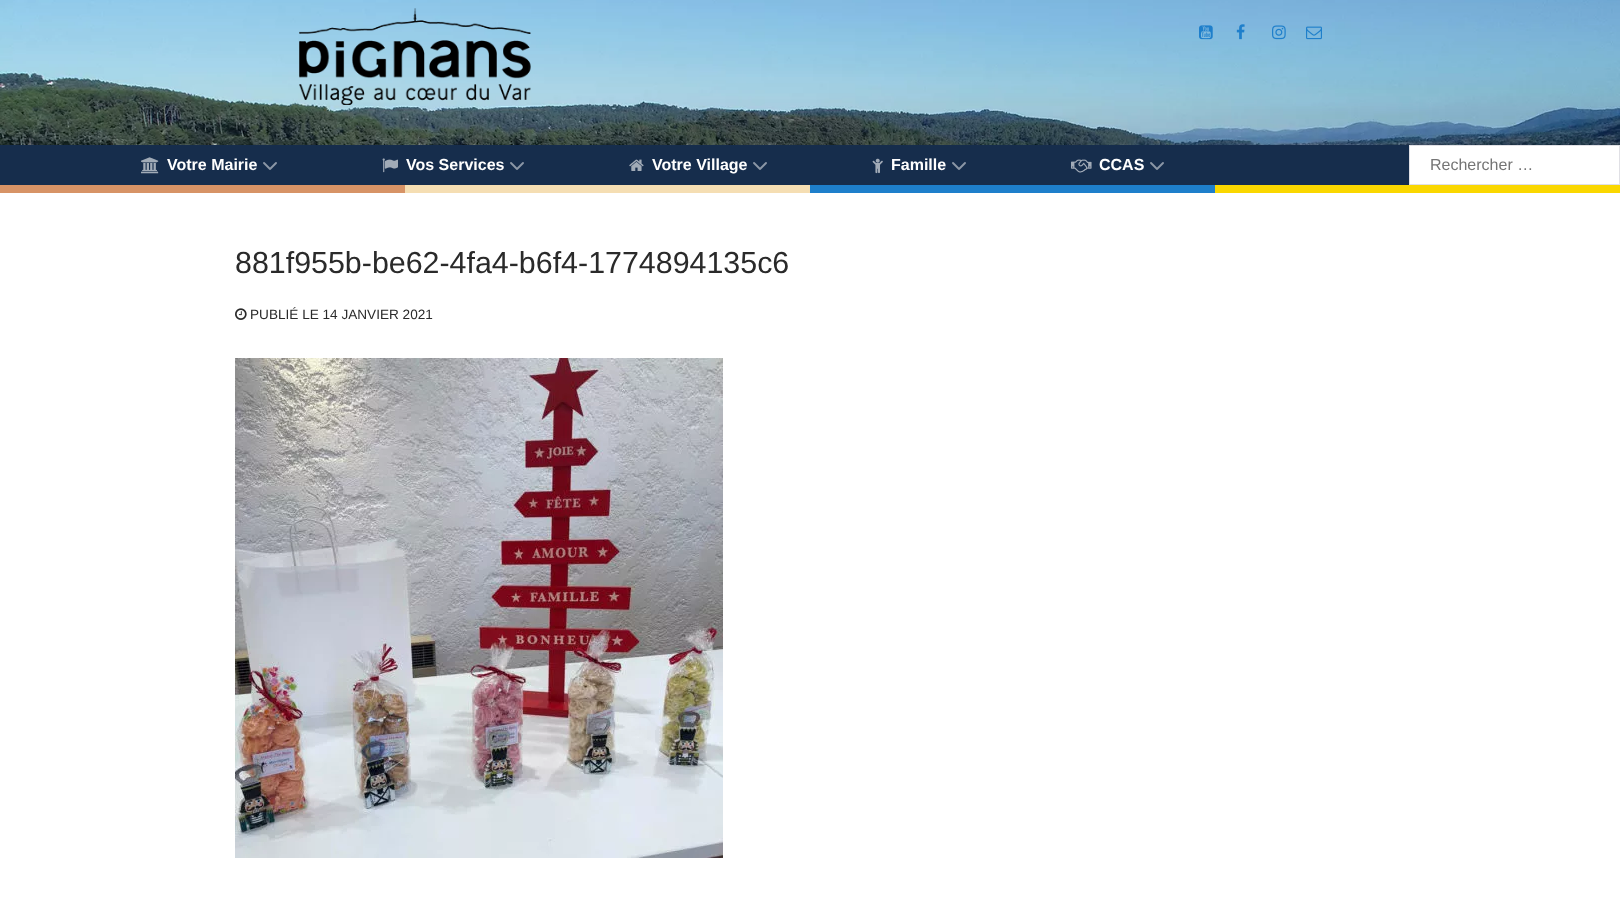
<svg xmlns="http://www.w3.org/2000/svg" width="1620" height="912">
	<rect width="100%" height="100%" fill="#FFFFFF" />
	<image x="0" y="0" width="1620" height="145" href="assets/img1.png" />
	<image x="299" y="8" width="232" height="97" href="assets/img2.png" />
	<image x="1199" y="25" width="14" height="15" href="assets/img3.png" />
	<image x="1236" y="24" width="9" height="16" href="assets/img4.png" />
	<image x="1272" y="25" width="14" height="15" href="assets/img5.png" />
	<image x="1306" y="26" width="16" height="14" href="assets/img6.png" />
	<rect x="0" y="145" width="1409" height="40" fill="#162D4C" />
	<image x="141" y="157" width="18" height="17" href="assets/img7.png" />
	<text x="167" y="170" font-family="Liberation Sans" font-size="16" font-weight="700" fill="#FFFFFF">Votre Mairie</text>
	<image x="263" y="162" width="14" height="8" href="assets/img8.png" />
	<image x="382" y="158" width="16" height="15" href="assets/img9.png" />
	<text x="406" y="170" font-family="Liberation Sans" font-size="16" font-weight="700" fill="#FFFFFF">Vos Services</text>
	<image x="510" y="162" width="14" height="8" href="assets/img8.png" />
	<image x="629" y="159" width="15" height="12" href="assets/img10.png" />
	<text x="652" y="170" font-family="Liberation Sans" font-size="16" font-weight="700" fill="#FFFFFF">Votre Village</text>
	<image x="753" y="162" width="14" height="8" href="assets/img8.png" />
	<image x="872" y="158" width="11" height="16" href="assets/img11.png" />
	<text x="891" y="170" font-family="Liberation Sans" font-size="16" font-weight="700" fill="#FFFFFF">Famille</text>
	<image x="952" y="162" width="14" height="8" href="assets/img8.png" />
	<image x="1071" y="159" width="21" height="14" href="assets/img12.png" />
	<text x="1099" y="170" font-family="Liberation Sans" font-size="16" font-weight="700" fill="#FFFFFF">CCAS</text>
	<image x="1150" y="162" width="14" height="8" href="assets/img8.png" />
	<rect x="1409.5" y="145.5" width="210" height="39" fill="none" stroke="#E0E0E5" />
	<text x="1430" y="170" font-family="Liberation Sans" font-size="16" fill="#757575">Rechercher …</text>
	<rect x="0" y="185" width="405" height="8" fill="#D79366" />
	<rect x="405" y="185" width="405" height="8" fill="#F5DEB3" />
	<rect x="810" y="185" width="405" height="8" fill="#1E7FCB" />
	<rect x="1215" y="185" width="405" height="8" fill="#FAD700" />
	<text x="235" y="273" font-family="Liberation Sans" font-size="30.4" fill="#2A2A2A">881f955b-be62-4fa4-b6f4-1774894135c6</text>
	<image x="235" y="308" width="12" height="12" href="assets/img13.png" />
	<text x="250" y="319" font-family="Liberation Sans" font-size="13.6" fill="#2A2A2A">PUBLIÉ LE 14 JANVIER 2021</text>
	<image x="235" y="358" width="488" height="500" href="assets/img14.png" />
</svg>
